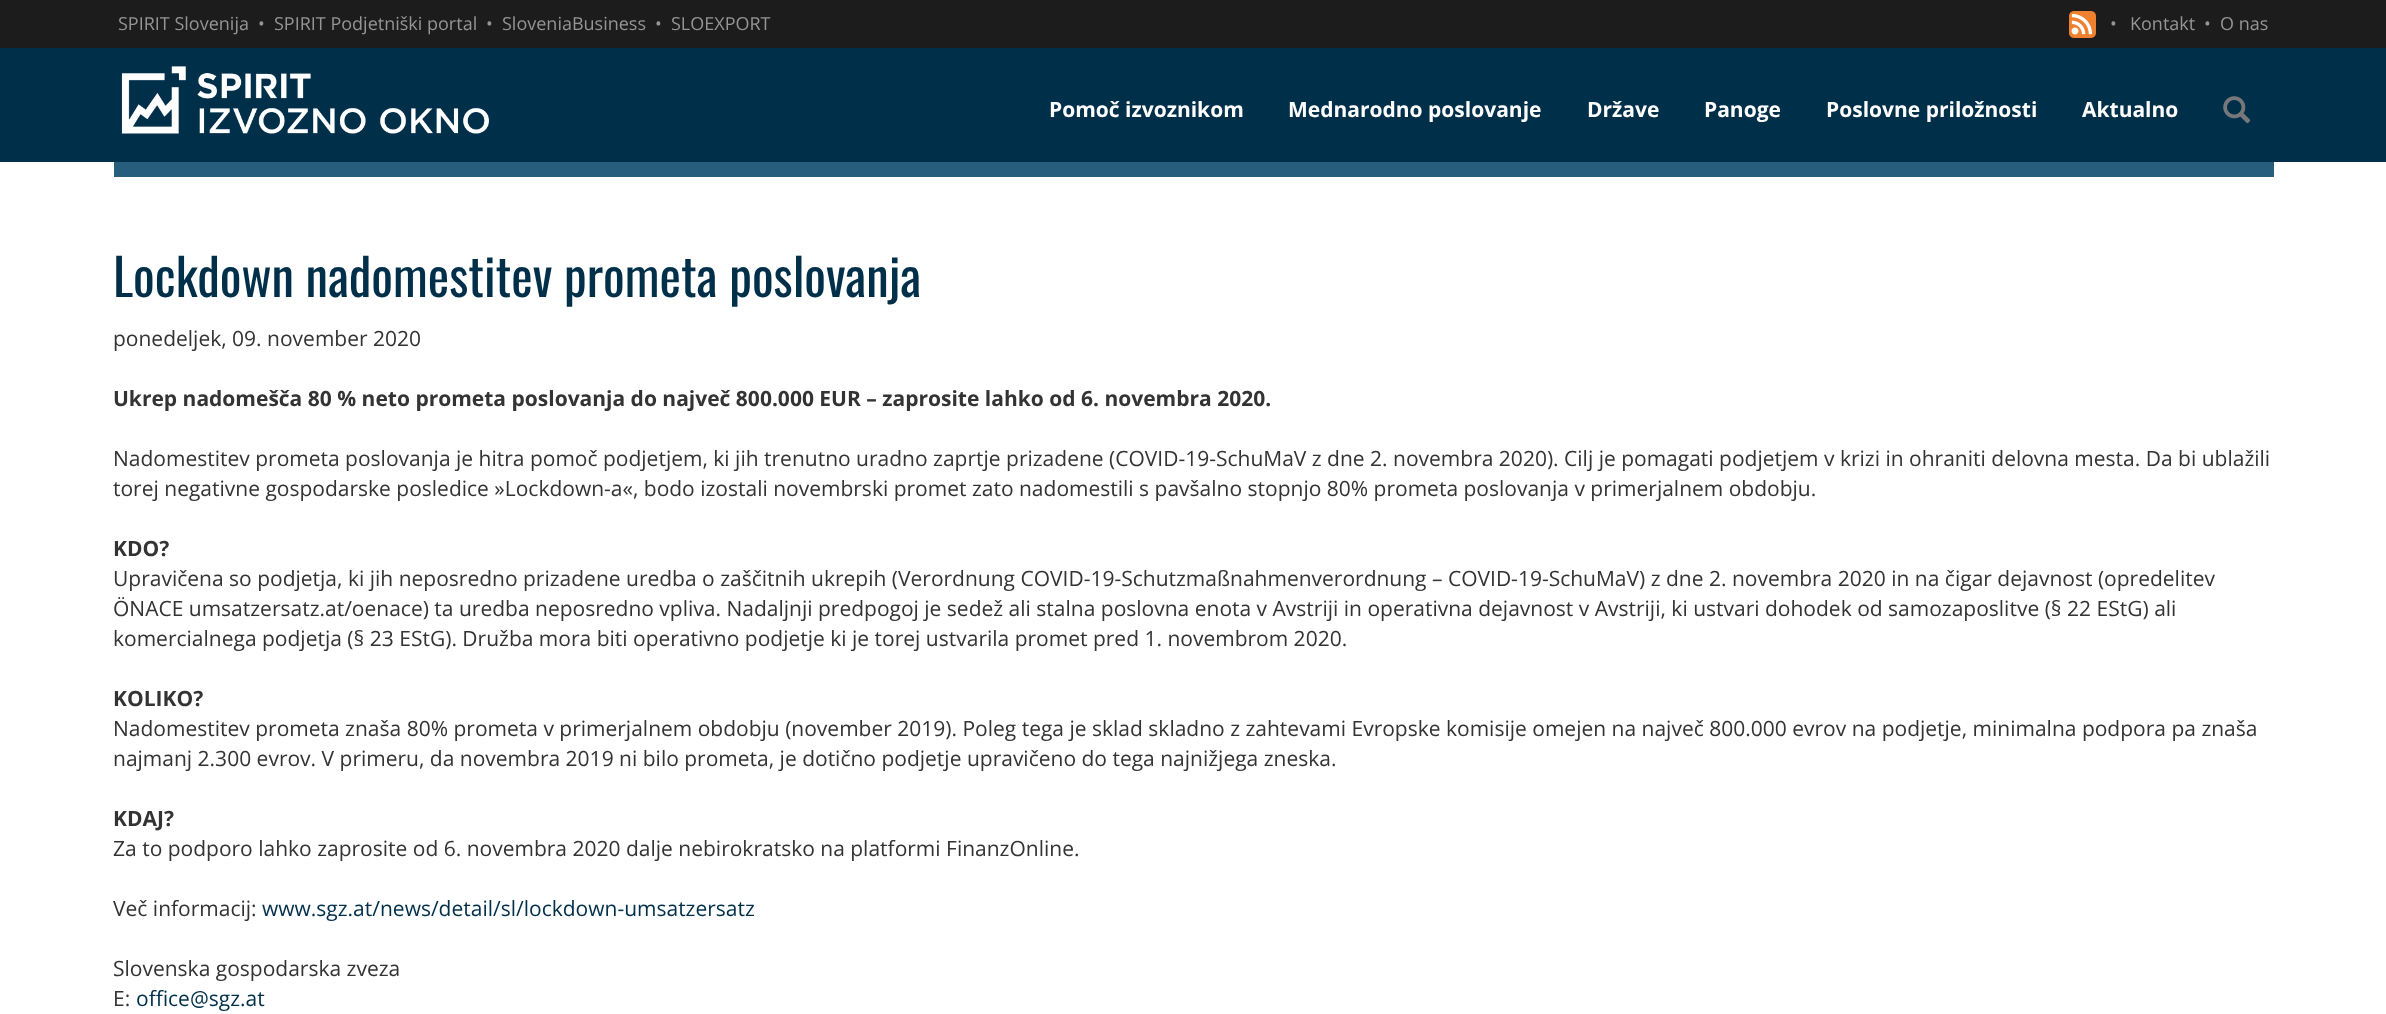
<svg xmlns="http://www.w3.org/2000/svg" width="2386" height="1014">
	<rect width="100%" height="100%" fill="#1C1C1C" />
	<g font-family="Open Sans" font-size="18" fill="#959595">
		<text x="118" y="30">SPIRIT Slovenija</text>
		<text x="258" y="30">•</text>
		<text x="274" y="30">SPIRIT Podjetniški portal</text>
		<text x="486" y="30">•</text>
		<text x="502" y="30">SloveniaBusiness</text>
		<text x="655" y="30">•</text>
		<text x="671" y="30">SLOEXPORT</text>
	</g>
	<image x="2069" y="11" width="27" height="27" href="assets/img1.png" />
	<g font-family="Open Sans" font-size="18" fill="#959595">
		<text x="2110" y="30">•</text>
		<text x="2130" y="30">Kontakt</text>
		<text x="2204" y="30">•</text>
		<text x="2220" y="30">O nas</text>
	</g>
	<rect x="0" y="48" width="2386" height="114" fill="#002F4A" />
	<image x="121" y="66" width="368" height="68" href="assets/img2.png" />
	<g font-family="Open Sans" font-size="21" font-weight="700" fill="#FFFFFF">
		<text x="1049" y="117">Pomoč izvoznikom</text>
		<text x="1288" y="117">Mednarodno poslovanje</text>
		<text x="1587" y="117">Države</text>
		<text x="1704" y="117">Panoge</text>
		<text x="1826" y="117">Poslovne priložnosti</text>
		<text x="2082" y="117">Aktualno</text>
	</g>
	<image x="2223" y="96" width="28" height="28" href="assets/img3.png" />
	<rect x="0" y="162" width="2386" height="852" fill="#FFFFFF" />
	<rect x="114" y="162" width="2160" height="15" fill="#275E7E" />
	<text x="113" y="297" font-family="Oswald" font-size="51" fill="#002F4A">Lockdown nadomestitev prometa poslovanja</text>
	<text x="113" y="346" font-family="Open Sans" font-size="21" fill="#333333">ponedeljek, 09. november 2020</text>
	<text x="113" y="406" font-family="Open Sans" font-size="21" font-weight="700" fill="#333333">Ukrep nadomešča 80 % neto prometa poslovanja do največ 800.000 EUR – zaprosite lahko od 6. novembra 2020.</text>
	<g font-family="Open Sans" font-size="21" fill="#333333">
		<text x="113" y="466">Nadomestitev prometa poslovanja je hitra pomoč podjetjem, ki jih trenutno uradno zaprtje prizadene (COVID-19-SchuMaV z dne 2. novembra 2020). Cilj je pomagati podjetjem v krizi in ohraniti delovna mesta. Da bi ublažili</text>
		<text x="113" y="496">torej negativne gospodarske posledice »Lockdown-a«, bodo izostali novembrski promet zato nadomestili s pavšalno stopnjo 80% prometa poslovanja v primerjalnem obdobju.</text>
	</g>
	<text x="113" y="556" font-family="Open Sans" font-size="21" font-weight="700" fill="#333333">KDO?</text>
	<g font-family="Open Sans" font-size="21" fill="#333333">
		<text x="113" y="586">Upravičena so podjetja, ki jih neposredno prizadene uredba o zaščitnih ukrepih (Verordnung COVID-19-Schutzmaßnahmenverordnung – COVID-19-SchuMaV) z dne 2. novembra 2020 in na čigar dejavnost (opredelitev</text>
		<text x="113" y="616">ÖNACE umsatzersatz.at/oenace) ta uredba neposredno vpliva. Nadaljnji predpogoj je sedež ali stalna poslovna enota v Avstriji in operativna dejavnost v Avstriji, ki ustvari dohodek od samozaposlitve (§ 22 EStG) ali</text>
		<text x="113" y="646">komercialnega podjetja (§ 23 EStG). Družba mora biti operativno podjetje ki je torej ustvarila promet pred 1. novembrom 2020.</text>
	</g>
	<text x="113" y="706" font-family="Open Sans" font-size="21" font-weight="700" fill="#333333">KOLIKO?</text>
	<g font-family="Open Sans" font-size="21" fill="#333333">
		<text x="113" y="736">Nadomestitev prometa znaša 80% prometa v primerjalnem obdobju (november 2019). Poleg tega je sklad skladno z zahtevami Evropske komisije omejen na največ 800.000 evrov na podjetje, minimalna podpora pa znaša</text>
		<text x="113" y="766">najmanj 2.300 evrov. V primeru, da novembra 2019 ni bilo prometa, je dotično podjetje upravičeno do tega najnižjega zneska.</text>
	</g>
	<text x="113" y="826" font-family="Open Sans" font-size="21" font-weight="700" fill="#333333">KDAJ?</text>
	<g font-family="Open Sans" font-size="21" fill="#333333">
		<text x="113" y="856">Za to podporo lahko zaprosite od 6. novembra 2020 dalje nebirokratsko na platformi FinanzOnline.</text>
		<text x="113" y="916">Več informacij:</text>
	</g>
	<text x="262" y="916" font-family="Open Sans" font-size="21" fill="#002F4A">www.sgz.at/news/detail/sl/lockdown-umsatzersatz</text>
	<g font-family="Open Sans" font-size="21" fill="#333333">
		<text x="113" y="976">Slovenska gospodarska zveza</text>
		<text x="113" y="1006">E:</text>
	</g>
	<text x="136" y="1006" font-family="Open Sans" font-size="21" fill="#002F4A">office@sgz.at</text>
</svg>
